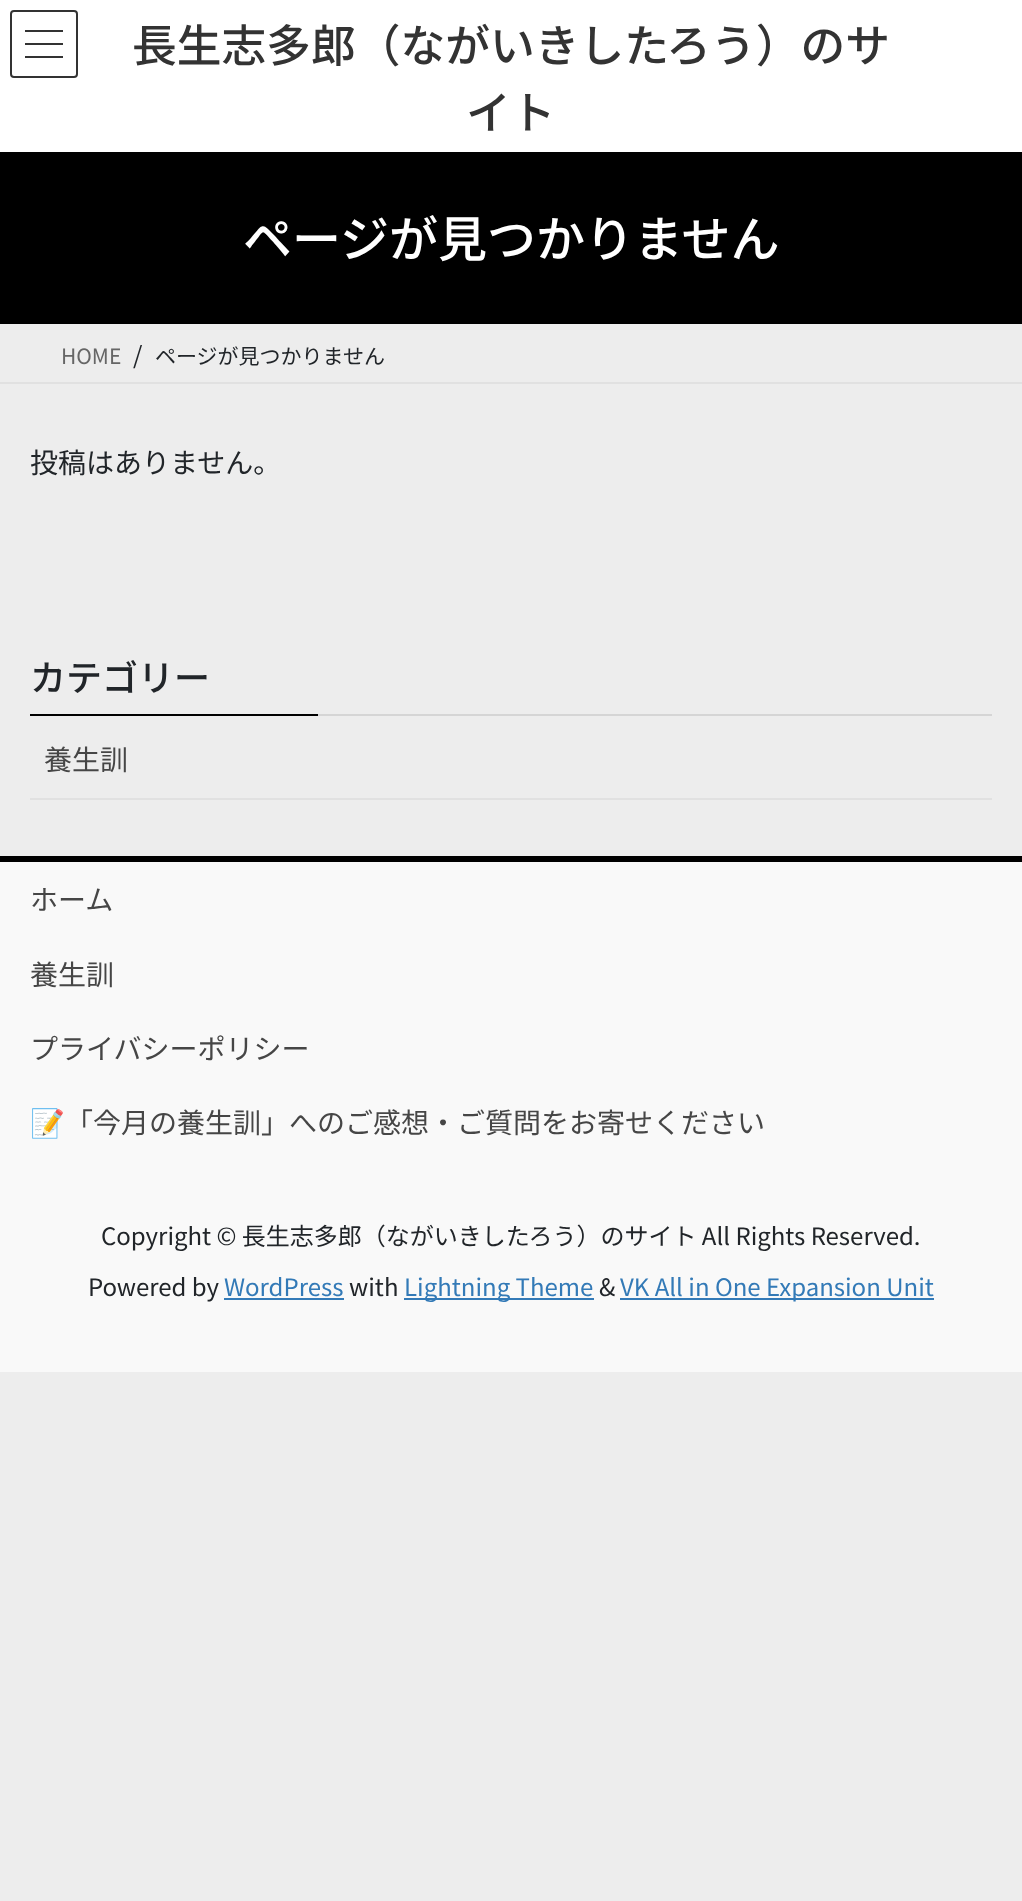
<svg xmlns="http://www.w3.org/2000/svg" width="1022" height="1901">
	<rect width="100%" height="100%" fill="#EDEDED" />
	<rect x="0" y="0" width="1022" height="152" fill="#FFFFFF" />
	<rect x="25" y="30" width="38" height="2" fill="#333333" />
	<rect x="25" y="43" width="38" height="2" fill="#333333" />
	<rect x="25" y="56" width="38" height="2" fill="#333333" />
	<rect x="11" y="11" width="66" height="66" rx="3" fill="none" stroke="#333333" stroke-width="2" />
	<g font-family="Noto Sans JP" font-size="44.75" font-weight="500" fill="#333333">
		<text x="132" y="62">長生志多郎（ながいきしたろう）のサ</text>
		<text x="466" y="129">イト</text>
	</g>
	<rect x="0" y="152" width="1022" height="172" fill="#000000" />
	<text x="243" y="257" font-family="Noto Sans JP" font-size="49" font-weight="500" fill="#FFFFFF">ページが見つかりません</text>
	<rect x="0" y="382" width="1022" height="2" fill="#E1E1E1" />
	<text x="61" y="364" font-family="Noto Sans JP" font-size="21" fill="#666666">HOME</text>
	<text x="133" y="364" font-family="Noto Sans JP" font-size="24" fill="#212529">/</text>
	<text x="155" y="364" font-family="Noto Sans JP" font-size="21" fill="#212529">ページが見つかりません</text>
	<text x="30" y="473" font-family="Noto Sans JP" font-size="28" fill="#212529">投稿はありません。</text>
	<rect x="318" y="714" width="674" height="2" fill="#D5D5D5" />
	<text x="30" y="691" font-family="Noto Sans JP" font-size="36" font-weight="500" fill="#212529">カテゴリー</text>
	<rect x="30" y="714" width="288" height="2" fill="#000000" />
	<rect x="30" y="798" width="962" height="2" fill="#E1E1E1" />
	<text x="44" y="770" font-family="Noto Sans JP" font-size="28" fill="#464646">養生訓</text>
	<rect x="0" y="862" width="1022" height="510" fill="#F9F9F9" />
	<rect x="0" y="856" width="1022" height="6" fill="#000000" />
	<g font-family="Noto Sans JP" font-size="28" fill="#464646">
		<text x="30" y="910">ホーム</text>
		<text x="30" y="985">養生訓</text>
		<text x="30" y="1059">プライバシーポリシー</text>
	</g>
	<text x="30" y="1133" font-family="Noto Color Emoji" font-size="28" fill="#464646">📝</text>
	<text x="65" y="1133" font-family="Noto Sans JP" font-size="28" fill="#464646">「今月の養生訓」へのご感想・ご質問をお寄せください</text>
	<g font-family="Noto Sans JP" font-size="24" fill="#212529">
		<text x="101" y="1245">Copyright © 長生志多郎（ながいきしたろう）のサイト All Rights Reserved.</text>
		<text x="88" y="1296">Powered by</text>
	</g>
	<text x="224" y="1296" font-family="Noto Sans JP" font-size="24" fill="#337AB7">WordPress</text>
	<rect x="224" y="1298" width="120" height="2" fill="#337AB7" />
	<text x="349" y="1296" font-family="Noto Sans JP" font-size="24" fill="#212529">with</text>
	<rect x="404" y="1298" width="190" height="2" fill="#337AB7" />
	<text x="404" y="1296" font-family="Noto Sans JP" font-size="24" fill="#337AB7">Lightning Theme</text>
	<text x="599" y="1296" font-family="Noto Sans JP" font-size="24" fill="#212529">&amp;</text>
	<rect x="620" y="1298" width="314" height="2" fill="#337AB7" />
	<text x="620" y="1296" font-family="Noto Sans JP" font-size="24" fill="#337AB7">VK All in One Expansion Unit</text>
</svg>
